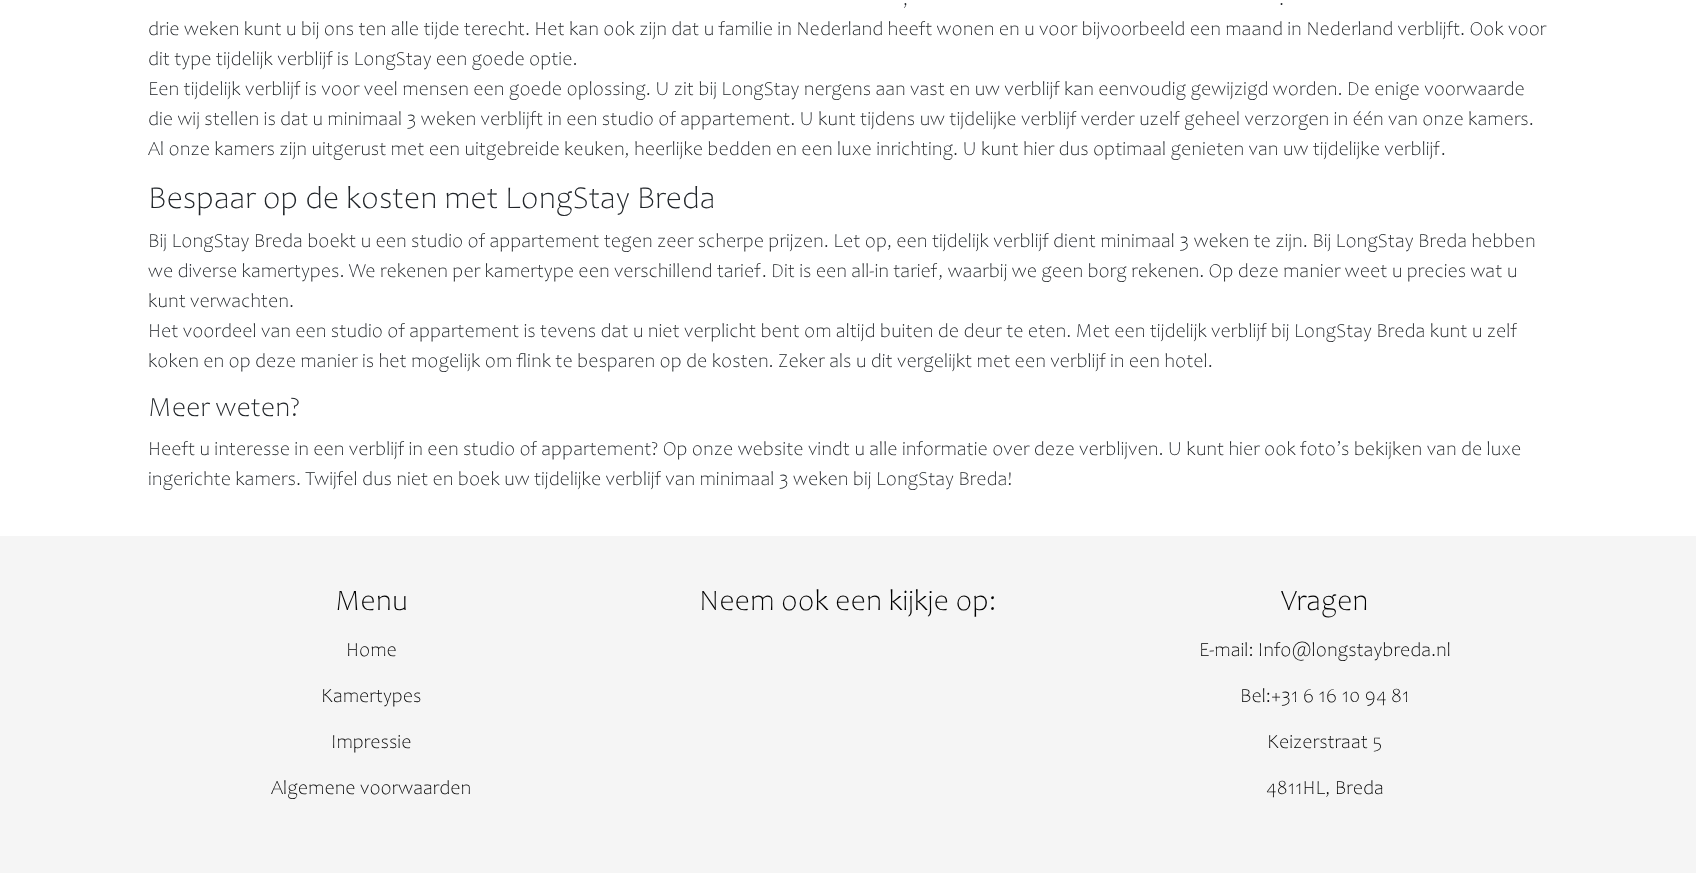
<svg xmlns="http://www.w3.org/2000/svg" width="1696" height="873">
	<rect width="100%" height="100%" fill="#FFFFFF" />
	<g font-family="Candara" font-size="20" font-weight="300" fill="#212529">
		<text x="903" y="5">,</text>
		<text x="1279" y="5">.</text>
		<text x="148" y="35">drie weken kunt u bij ons ten alle tijde terecht. Het kan ook zijn dat u familie in Nederland heeft wonen en u voor bijvoorbeeld een maand in Nederland verblijft. Ook voor</text>
		<text x="148" y="65">dit type tijdelijk verblijf is LongStay een goede optie.</text>
		<text x="148" y="95">Een tijdelijk verblijf is voor veel mensen een goede oplossing. U zit bij LongStay nergens aan vast en uw verblijf kan eenvoudig gewijzigd worden. De enige voorwaarde</text>
		<text x="148" y="125">die wij stellen is dat u minimaal 3 weken verblijft in een studio of appartement. U kunt tijdens uw tijdelijke verblijf verder uzelf geheel verzorgen in één van onze kamers.</text>
		<text x="148" y="155">Al onze kamers zijn uitgerust met een uitgebreide keuken, heerlijke bedden en een luxe inrichting. U kunt hier dus optimaal genieten van uw tijdelijke verblijf.</text>
	</g>
	<text x="148" y="208" font-family="Candara" font-size="32" font-weight="300" fill="#212529">Bespaar op de kosten met LongStay Breda</text>
	<g font-family="Candara" font-size="20" font-weight="300" fill="#212529">
		<text x="148" y="247">Bij LongStay Breda boekt u een studio of appartement tegen zeer scherpe prijzen. Let op, een tijdelijk verblijf dient minimaal 3 weken te zijn. Bij LongStay Breda hebben</text>
		<text x="148" y="277">we diverse kamertypes. We rekenen per kamertype een verschillend tarief. Dit is een all-in tarief, waarbij we geen borg rekenen. Op deze manier weet u precies wat u</text>
		<text x="148" y="307">kunt verwachten.</text>
		<text x="148" y="337">Het voordeel van een studio of appartement is tevens dat u niet verplicht bent om altijd buiten de deur te eten. Met een tijdelijk verblijf bij LongStay Breda kunt u zelf</text>
		<text x="148" y="367">koken en op deze manier is het mogelijk om flink te besparen op de kosten. Zeker als u dit vergelijkt met een verblijf in een hotel.</text>
	</g>
	<text x="148" y="416" font-family="Candara" font-size="28" font-weight="300" fill="#212529">Meer weten?</text>
	<g font-family="Candara" font-size="20" font-weight="300" fill="#212529">
		<text x="148" y="455">Heeft u interesse in een verblijf in een studio of appartement? Op onze website vindt u alle informatie over deze verblijven. U kunt hier ook foto’s bekijken van de luxe</text>
		<text x="148" y="485">ingerichte kamers. Twijfel dus niet en boek uw tijdelijke verblijf van minimaal 3 weken bij LongStay Breda!</text>
	</g>
	<rect x="0" y="536" width="1696" height="337" fill="#F5F5F5" />
	<text x="335" y="610" font-family="Candara" font-size="30" font-weight="300" fill="#000000">Menu</text>
	<g font-family="Candara" font-size="20" font-weight="300" fill="#000000">
		<text x="346" y="656">Home</text>
		<text x="321" y="702">Kamertypes</text>
		<text x="331" y="748">Impressie</text>
		<text x="271" y="794">Algemene voorwaarden</text>
	</g>
	<g font-family="Candara" font-size="30" font-weight="300" fill="#000000">
		<text x="699" y="610">Neem ook een kijkje op:</text>
		<text x="1281" y="610">Vragen</text>
	</g>
	<g font-family="Candara" font-size="20" font-weight="300" fill="#000000">
		<text x="1199" y="656">E-mail: Info@longstaybreda.nl</text>
		<text x="1240" y="702">Bel:+31 6 16 10 94 81</text>
		<text x="1267" y="748">Keizerstraat 5</text>
		<text x="1266" y="794">4811HL, Breda</text>
	</g>
</svg>
